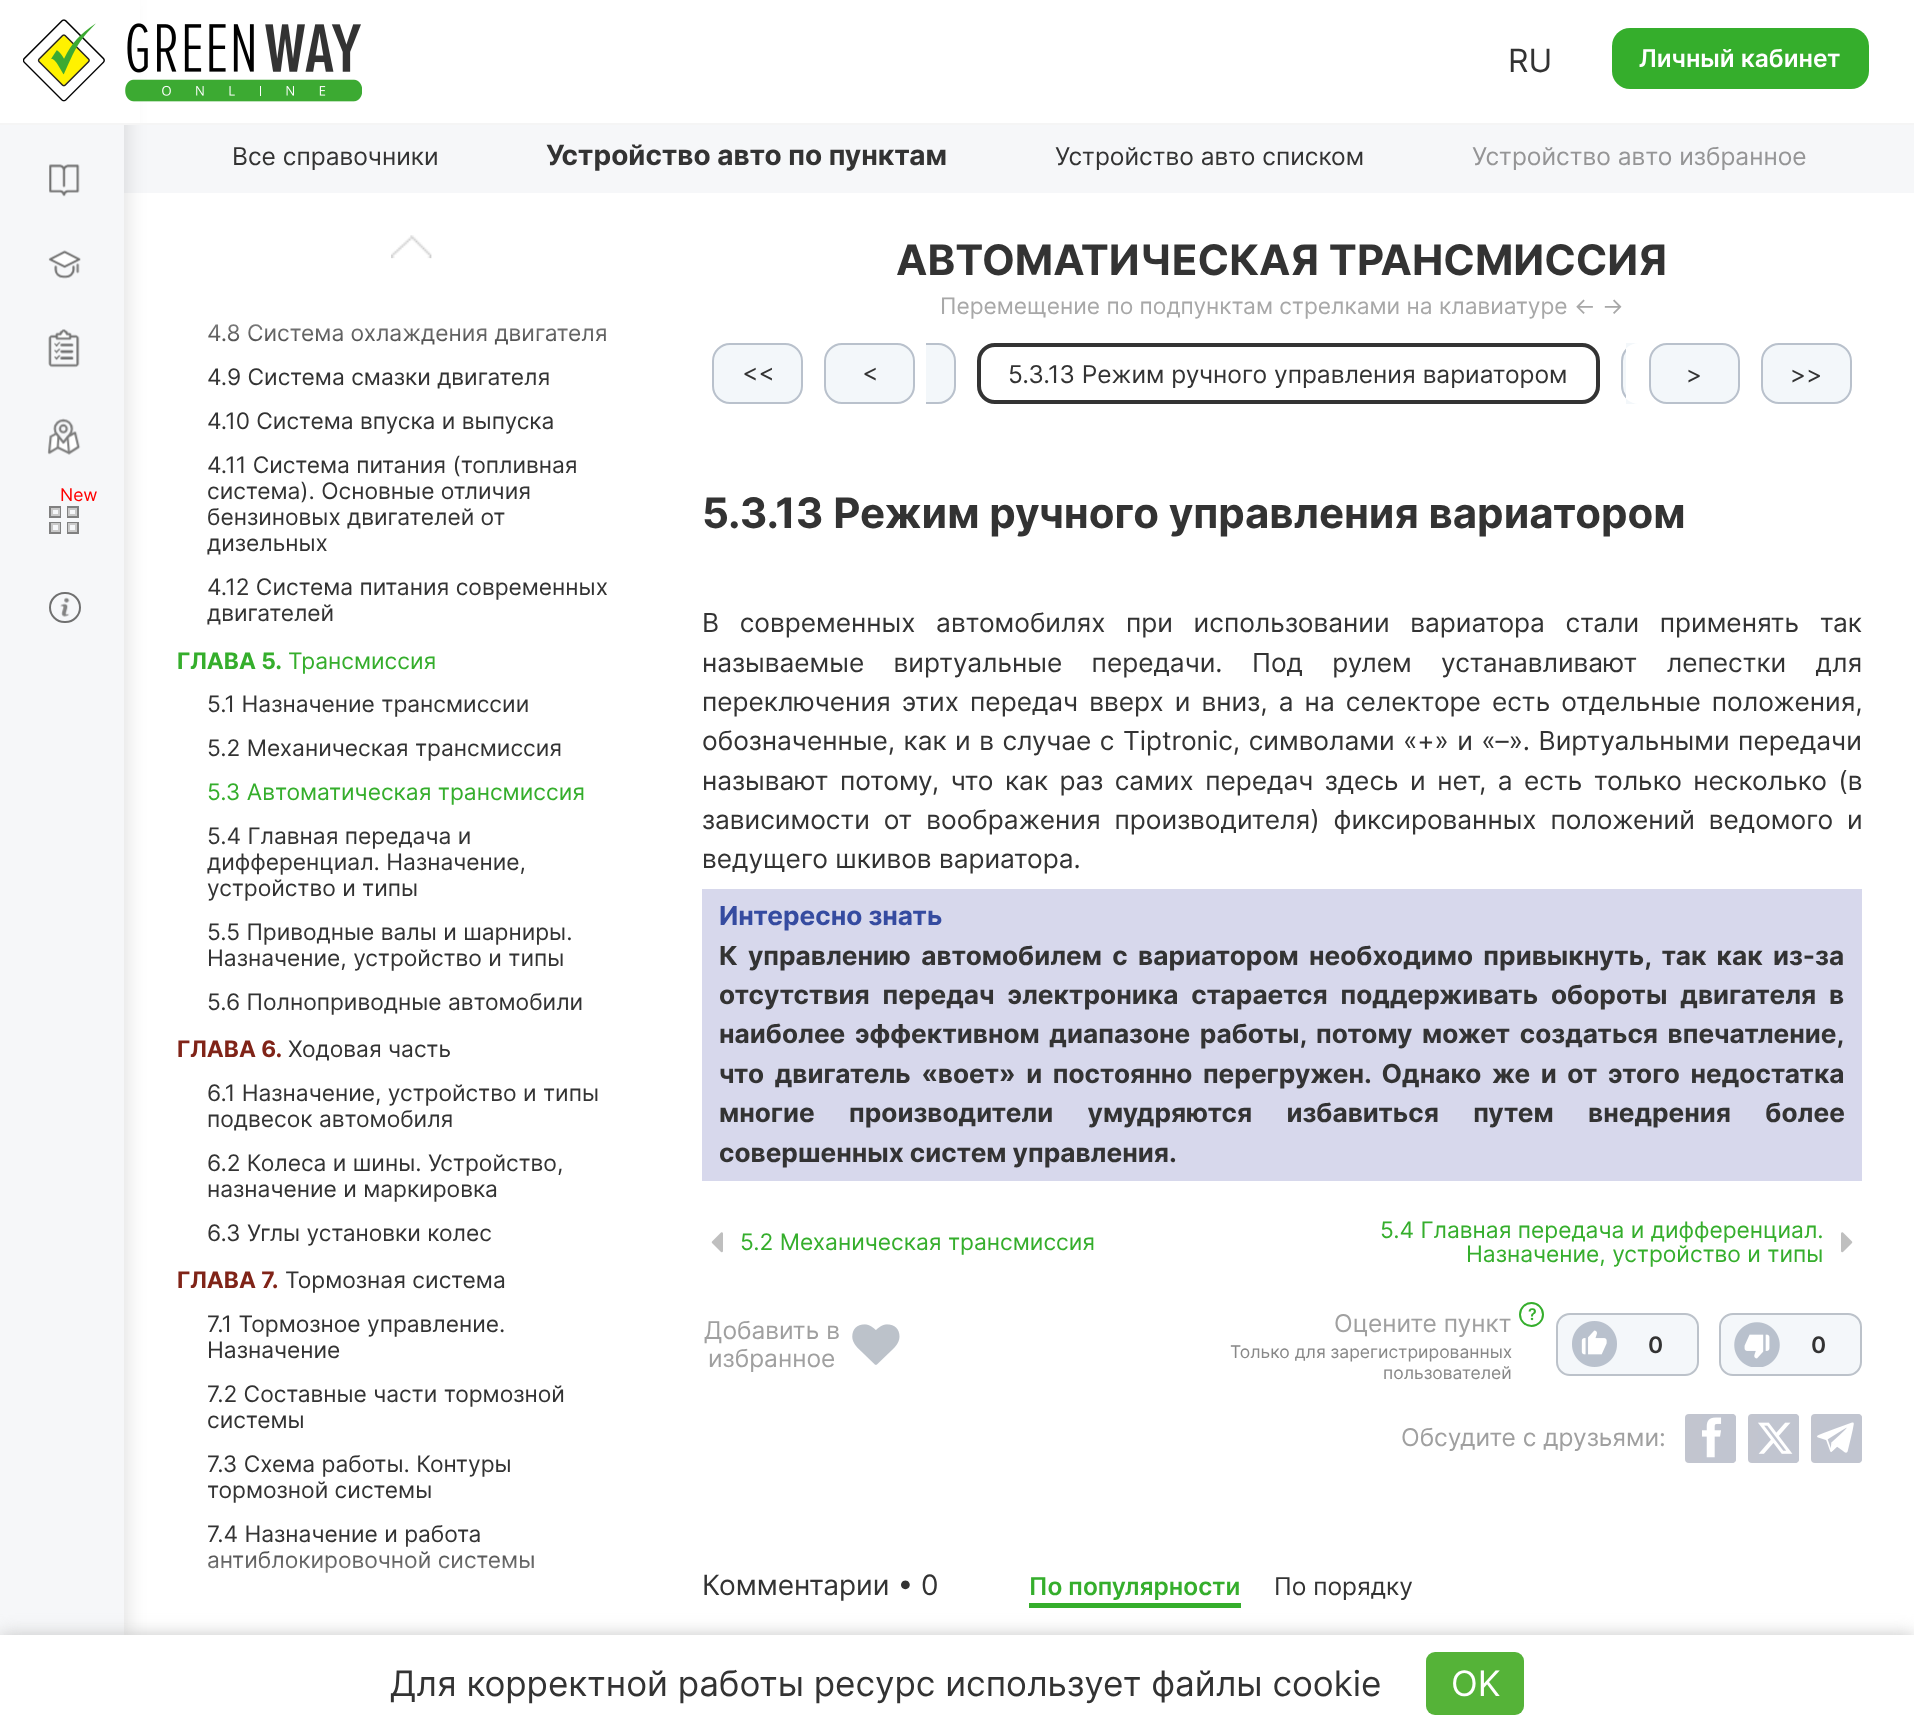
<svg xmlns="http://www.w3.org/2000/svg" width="1914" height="1732">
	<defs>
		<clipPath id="clip1"><rect x="926" y="329" width="700" height="84" /></clipPath>
		<linearGradient id="g1" gradientUnits="userSpaceOnUse" x1="667" y1="355" x2="667" y2="268"><stop offset="0" stop-color="#FFFFFF" stop-opacity="0" /><stop offset="1" stop-color="#FFFFFF" /></linearGradient>
		<linearGradient id="g2" gradientUnits="userSpaceOnUse" x1="177" y1="1540" x2="177" y2="1627"><stop offset="0" stop-color="#FFFFFF" stop-opacity="0" /><stop offset="1" stop-color="#FFFFFF" /></linearGradient>
	</defs>
	<rect width="100%" height="100%" fill="#FFFFFF" />
	<rect x="124" y="125" width="1790" height="68" fill="#F6F7F9" />
	<rect x="4" y="0" width="124" height="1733" fill="#020202" fill-opacity="0.11" filter="blur(9.5px)" />
	<rect x="0" y="0" width="140" height="123" fill="#FFFFFF" />
	<rect x="0" y="123" width="1914" height="2" fill="#F5F5F5" />
	<image x="23" y="19" width="339" height="83" href="assets/img1.png" />
	<text x="1508" y="72" font-family="Inter" font-size="32" fill="#333333">RU</text>
	<rect x="1612" y="28" width="257" height="61" rx="18" fill="#35AE2C" />
	<text x="1639" y="67" font-family="Inter" font-size="24.5" font-weight="600" fill="#FFFFFF">Личный кабинет</text>
	<rect x="0" y="125" width="124" height="1510" fill="#F6F7F9" />
	<image x="49" y="164" width="31" height="33" href="assets/img2.png" />
	<image x="48" y="250" width="33" height="29" href="assets/img3.png" />
	<image x="48" y="329" width="32" height="39" href="assets/img4.png" />
	<image x="47" y="418" width="34" height="37" href="assets/img5.png" />
	<text x="60" y="501" font-family="Inter" font-size="17.5" fill="#FF0000">New</text>
	<rect x="50" y="507" width="10" height="10" fill="none" stroke="#808080" stroke-width="2" />
	<rect x="52" y="509" width="7" height="6" fill="none" stroke="#C9C9C9" stroke-width="2" />
	<rect x="68" y="507" width="10" height="10" fill="none" stroke="#808080" stroke-width="2" />
	<rect x="69" y="509" width="7" height="6" fill="none" stroke="#C9C9C9" stroke-width="2" />
	<rect x="50" y="523" width="10" height="10" fill="none" stroke="#808080" stroke-width="2" />
	<rect x="52" y="524" width="7" height="7" fill="none" stroke="#C9C9C9" stroke-width="2" />
	<rect x="68" y="523" width="10" height="10" fill="none" stroke="#808080" stroke-width="2" />
	<rect x="69" y="524" width="7" height="7" fill="none" stroke="#C9C9C9" stroke-width="2" />
	<image x="60" y="597" width="10" height="20" href="assets/img6.png" />
	<rect x="50" y="593" width="30" height="29" rx="14.5" fill="none" stroke="#707070" stroke-width="2" />
	<text x="232" y="165" font-family="Inter" font-size="24.5" fill="#333333">Все справочники</text>
	<text x="546" y="165" font-family="Inter" font-size="28" font-weight="700" fill="#333333">Устройство авто по пунктам</text>
	<text x="1055" y="165" font-family="Inter" font-size="24.5" fill="#333333">Устройство авто списком</text>
	<text x="1472" y="165" font-family="Inter" font-size="24.5" fill="#959596">Устройство авто избранное</text>
	<g font-family="Inter" font-size="22.75" fill="#333333">
		<text x="207" y="341">4.8 Система охлаждения двигателя</text>
		<text x="207" y="385">4.9 Система смазки двигателя</text>
	</g>
	<rect x="713" y="344" width="89" height="59" rx="17" fill="#F3F7FA" stroke="#B9C1CC" stroke-width="2" />
	<rect x="825" y="344" width="89" height="59" rx="17" fill="#F3F7FA" stroke="#B9C1CC" stroke-width="2" />
	<path d="M926 343H938C948 343 956 351 956 361V386C956 396 948 404 938 404H926Z" fill="#F3F7FA" />
	<g clip-path="url(#clip1)">
		<rect x="482" y="344" width="473" height="59" rx="17" fill="none" stroke="#B9C1CC" stroke-width="2" />
	</g>
	<rect x="207" y="324" width="399" height="21" fill="url(#g1)" />
	<image x="391" y="235" width="41" height="24" href="assets/img7.png" />
	<g font-family="Inter" font-size="22.75" fill="#333333">
		<text x="207" y="429">4.10 Система впуска и выпуска</text>
		<text x="207" y="473">4.11 Система питания (топливная</text>
		<text x="207" y="499">система). Основные отличия</text>
		<text x="207" y="525">бензиновых двигателей от</text>
		<text x="207" y="551">дизельных</text>
		<text x="207" y="595">4.12 Система питания современных</text>
		<text x="207" y="621">двигателей</text>
	</g>
	<text x="177" y="669" font-family="Inter" font-size="22.75" font-weight="700" fill="#35AE2C">ГЛАВА 5.</text>
	<text x="288" y="669" font-family="Inter" font-size="22.75" fill="#35AE2C">Трансмиссия</text>
	<g font-family="Inter" font-size="22.75" fill="#333333">
		<text x="207" y="712">5.1 Назначение трансмиссии</text>
		<text x="207" y="756">5.2 Механическая трансмиссия</text>
	</g>
	<text x="207" y="800" font-family="Inter" font-size="22.75" fill="#35AE2C">5.3 Автоматическая трансмиссия</text>
	<g font-family="Inter" font-size="22.75" fill="#333333">
		<text x="207" y="844">5.4 Главная передача и</text>
		<text x="207" y="870">дифференциал. Назначение,</text>
		<text x="207" y="896">устройство и типы</text>
		<text x="207" y="940">5.5 Приводные валы и шарниры.</text>
		<text x="207" y="966">Назначение, устройство и типы</text>
		<text x="207" y="1010">5.6 Полноприводные автомобили</text>
	</g>
	<text x="177" y="1057" font-family="Inter" font-size="22.75" font-weight="700" fill="#802418">ГЛАВА 6.</text>
	<g font-family="Inter" font-size="22.75" fill="#333333">
		<text x="288" y="1057">Ходовая часть</text>
		<text x="207" y="1101">6.1 Назначение, устройство и типы</text>
		<text x="207" y="1127">подвесок автомобиля</text>
		<text x="207" y="1171">6.2 Колеса и шины. Устройство,</text>
		<text x="207" y="1197">назначение и маркировка</text>
		<text x="207" y="1241">6.3 Углы установки колес</text>
	</g>
	<text x="177" y="1288" font-family="Inter" font-size="22.75" font-weight="700" fill="#802418">ГЛАВА 7.</text>
	<g font-family="Inter" font-size="22.75" fill="#333333">
		<text x="285" y="1288">Тормозная система</text>
		<text x="207" y="1332">7.1 Тормозное управление.</text>
		<text x="207" y="1358">Назначение</text>
		<text x="207" y="1402">7.2 Составные части тормозной</text>
		<text x="207" y="1428">системы</text>
		<text x="207" y="1472">7.3 Схема работы. Контуры</text>
		<text x="207" y="1498">тормозной системы</text>
		<text x="207" y="1542">7.4 Назначение и работа</text>
		<text x="207" y="1568">антиблокировочной системы</text>
	</g>
	<rect x="207" y="1542" width="326" height="31" fill="url(#g2)" />
	<text x="896" y="275" font-family="Inter" font-size="42" font-weight="700" fill="#333333">АВТОМАТИЧЕСКАЯ ТРАНСМИССИЯ</text>
	<text x="940" y="314" font-family="Inter" font-size="22.75" fill="#A8A8A8">Перемещение по подпунктам стрелками на клавиатуре ← →</text>
	<g font-family="Inter" font-size="24.5" fill="#333333">
		<text x="742" y="381">&lt;&lt;</text>
		<text x="862" y="381">&lt;</text>
	</g>
	<rect x="979" y="345" width="619" height="57" rx="16" fill="none" stroke="#333333" stroke-width="4" />
	<text x="1008" y="383" font-family="Inter" font-size="24.5" fill="#333333">5.3.13 Режим ручного управления вариатором</text>
	<path d="M1639 343H1626V404H1639C1629 404 1621 396 1621 386V361C1621 351 1629 343 1639 343Z" fill="#F3F7FA" />
	<g clip-path="url(#clip1)">
		<rect x="1622" y="344" width="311" height="59" rx="17" fill="none" stroke="#B9C1CC" stroke-width="2" />
	</g>
	<rect x="1650" y="344" width="89" height="59" rx="17" fill="#F3F7FA" stroke="#B9C1CC" stroke-width="2" />
	<text x="1686" y="383" font-family="Inter" font-size="24.5" fill="#333333">&gt;</text>
	<rect x="1762" y="344" width="89" height="59" rx="17" fill="#F3F7FA" stroke="#B9C1CC" stroke-width="2" />
	<text x="1790" y="383" font-family="Inter" font-size="24.5" fill="#333333">&gt;&gt;</text>
	<text x="702" y="528" font-family="Inter" font-size="42" font-weight="700" fill="#333333">5.3.13 Режим ручного управления вариатором</text>
	<g font-family="Inter" font-size="26.25" fill="#333333">
		<text x="702" y="632" word-spacing="13.25">В современных автомобилях при использовании вариатора стали применять так</text>
		<text x="702" y="672" word-spacing="22">называемые виртуальные передачи. Под рулем устанавливают лепестки для</text>
		<text x="702" y="711" word-spacing="3.75">переключения этих передач вверх и вниз, а на селекторе есть отдельные положения,</text>
		<text x="702" y="750" word-spacing="1.1">обозначенные, как и в случае с Tiptronic, символами «+» и «–». Виртуальными передачи</text>
		<text x="702" y="790" word-spacing="4.1">называют потому, что как раз самих передач здесь и нет, а есть только несколько (в</text>
		<text x="702" y="829" word-spacing="6.5">зависимости от воображения производителя) фиксированных положений ведомого и</text>
		<text x="702" y="868">ведущего шкивов вариатора.</text>
	</g>
	<rect x="702" y="889" width="1160" height="292" fill="#D7D8EC" />
	<text x="719" y="925" font-family="Inter" font-size="26.25" font-weight="700" fill="#354BA0">Интересно знать</text>
	<g font-family="Inter" font-size="26.25" font-weight="700" fill="#333333">
		<text x="719" y="965" word-spacing="4.25">К управлению автомобилем с вариатором необходимо привыкнуть, так как из-за</text>
		<text x="719" y="1004" word-spacing="6.75">отсутствия передач электроника старается поддерживать обороты двигателя в</text>
		<text x="719" y="1043" word-spacing="3.5">наиболее эффективном диапазоне работы, потому может создаться впечатление,</text>
		<text x="719" y="1083" word-spacing="4.5">что двигатель «воет» и постоянно перегружен. Однако же и от этого недостатка</text>
		<text x="719" y="1122" word-spacing="28.25">многие производители умудряются избавиться путем внедрения более</text>
		<text x="719" y="1162">совершенных систем управления.</text>
	</g>
	<image x="711" y="1232" width="12" height="21" href="assets/img8.png" />
	<g font-family="Inter" font-size="22.75" fill="#35AE2C">
		<text x="740" y="1250">5.2 Механическая трансмиссия</text>
		<text x="1380" y="1238">5.4 Главная передача и дифференциал.</text>
	</g>
	<image x="1841" y="1232" width="12" height="21" href="assets/img9.png" />
	<text x="1466" y="1262" font-family="Inter" font-size="22.75" fill="#35AE2C">Назначение, устройство и типы</text>
	<g font-family="Inter" font-size="24.5" fill="#A0A0A0">
		<text x="704" y="1339">Добавить в</text>
		<text x="708" y="1367">избранное</text>
	</g>
	<image x="852" y="1324" width="48" height="41" href="assets/img10.png" />
	<text x="1334" y="1332" font-family="Inter" font-size="24.5" fill="#A0A0A0">Оцените пункт</text>
	<circle cx="1531.5" cy="1314.5" r="11.5" fill="none" stroke="#35AE2C" stroke-width="2" />
	<text x="1528" y="1320" font-family="Inter" font-size="16" font-weight="600" fill="#35AE2C">?</text>
	<g font-family="Inter" font-size="17.5" fill="#888888">
		<text x="1230" y="1358">Только для зарегистрированных</text>
		<text x="1383" y="1379">пользователей</text>
	</g>
	<rect x="1557" y="1314" width="141" height="61" rx="13" fill="#F4F7FA" stroke="#BCC2CA" stroke-width="2" />
	<image x="1572" y="1321" width="45" height="46" href="assets/img11.png" />
	<text x="1648" y="1353" font-family="Inter" font-size="22.75" font-weight="600" fill="#333333">0</text>
	<rect x="1720" y="1314" width="141" height="61" rx="13" fill="#F4F7FA" stroke="#BCC2CA" stroke-width="2" />
	<image x="1734" y="1322" width="46" height="45" href="assets/img12.png" />
	<text x="1811" y="1353" font-family="Inter" font-size="22.75" font-weight="600" fill="#333333">0</text>
	<text x="1401" y="1446" font-family="Inter" font-size="24.5" fill="#A0A0A0">Обсудите с друзьями:</text>
	<rect x="1685" y="1414" width="51" height="49" rx="4" fill="#C2C5CF" />
	<image x="1702" y="1414" width="34" height="49" href="assets/img13.png" />
	<rect x="1748" y="1414" width="51" height="49" rx="4" fill="#C2C5CF" />
	<image x="1758" y="1414" width="41" height="49" href="assets/img14.png" />
	<rect x="1811" y="1414" width="51" height="49" rx="4" fill="#C2C5CF" />
	<image x="1817" y="1414" width="45" height="49" href="assets/img15.png" />
	<text x="702" y="1595" font-family="Inter" font-size="28" fill="#333333">Комментарии • 0</text>
	<text x="1029" y="1595" font-family="Inter" font-size="24.5" font-weight="600" fill="#35AE2C">По популярности</text>
	<rect x="1029" y="1603" width="212" height="5" fill="#35AE2C" />
	<text x="1274" y="1595" font-family="Inter" font-size="24.5" fill="#333333">По порядку</text>
	<rect x="0" y="1635" width="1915" height="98" fill="#C6C6C6" filter="blur(9px)" />
	<rect x="0" y="1635" width="1914" height="97" fill="#FFFFFF" />
	<text x="390" y="1696" font-family="Inter" font-size="35" fill="#333333">Для корректной работы ресурс использует файлы cookie</text>
	<rect x="1426" y="1652" width="98" height="63" rx="9" fill="#55B338" />
	<text x="1451" y="1696" font-family="Inter" font-size="35" fill="#FFFFFF">OK</text>
</svg>
